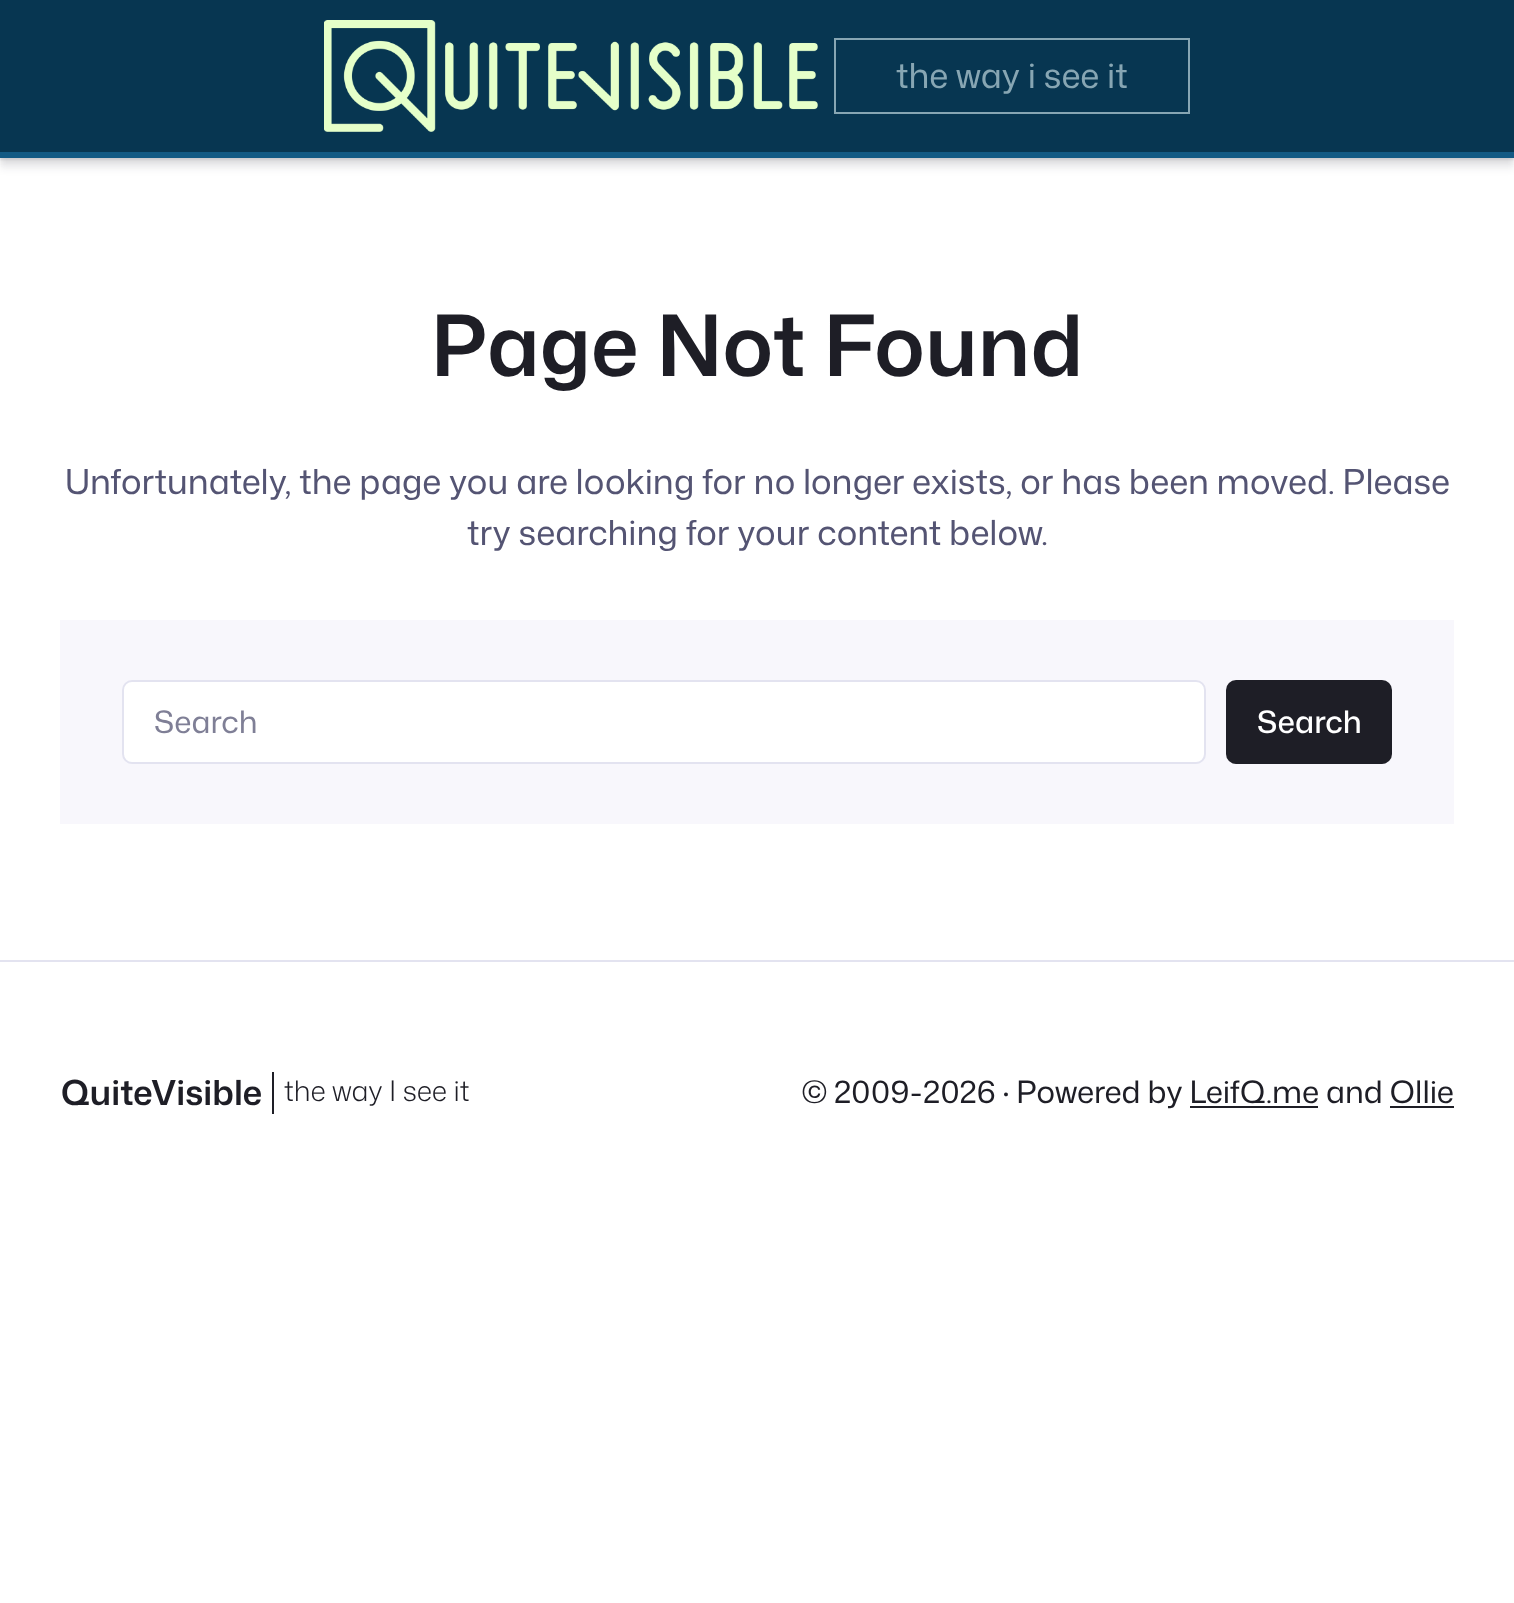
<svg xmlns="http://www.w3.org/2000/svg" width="1514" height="1603">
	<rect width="100%" height="100%" fill="#FFFFFF" />
	<rect x="0" y="2" width="1514" height="158" fill="#14111F" fill-opacity="0.1" filter="blur(1px)" />
	<rect x="0" y="6" width="1514" height="158" fill="#14111F" fill-opacity="0.09" filter="blur(3px)" />
	<rect x="0" y="12" width="1514" height="158" fill="#14111F" fill-opacity="0.05" filter="blur(3px)" />
	<rect x="0" y="0" width="1514" height="152" fill="#073651" />
	<rect x="0" y="152" width="1514" height="6" fill="#125A84" />
	<image x="324" y="20" width="494" height="112" href="assets/img1.png" />
	<rect x="835" y="39" width="354" height="74" fill="none" stroke="#87A6B3" stroke-width="2" />
	<text x="896" y="88" font-family="Mona Sans" font-size="34.45" fill="#87A6B3">the way i see it</text>
	<text x="431" y="376" font-family="Mona Sans" font-size="84.25" font-weight="600" fill="#1E1E26">Page Not Found</text>
	<g font-family="Mona Sans" font-size="34.45" fill="#545473">
		<text x="65" y="494">Unfortunately, the page you are looking for no longer exists, or has been moved. Please</text>
		<text x="467" y="545">try searching for your content below.</text>
	</g>
	<rect x="60" y="620" width="1394" height="204" fill="#F8F7FC" />
	<rect x="123" y="681" width="1082" height="82" rx="9" fill="#FFFFFF" stroke="#E3E3F0" stroke-width="2" />
	<text x="154" y="733" font-family="Mona Sans" font-size="31" fill="#7F7F96">Search</text>
	<rect x="1226" y="680" width="166" height="84" rx="10" fill="#1E1E26" />
	<text x="1257" y="733" font-family="Mona Sans" font-size="31" font-weight="500" fill="#FFFFFF">Search</text>
	<rect x="0" y="960" width="1514" height="2" fill="#E3E3F0" />
	<text x="61" y="1105" font-family="Mona Sans" font-size="34.45" font-weight="600" fill="#1E1E26">QuiteVisible</text>
	<rect x="272" y="1072" width="2" height="42" fill="#1E1E26" />
	<text x="284" y="1101" font-family="Mona Sans" font-size="28.25" font-weight="300" fill="#1E1E26">the way I see it</text>
	<g font-family="Mona Sans" font-size="31" fill="#1E1E26">
		<text x="801" y="1103" word-spacing="-1">© 2009-</text>
		<text x="923" y="1103">2026 · Powered by LeifQ.me and Ollie</text>
	</g>
	<rect x="1190" y="1106" width="128" height="2" fill="#1E1E26" />
	<rect x="1390" y="1106" width="64" height="2" fill="#1E1E26" />
</svg>
